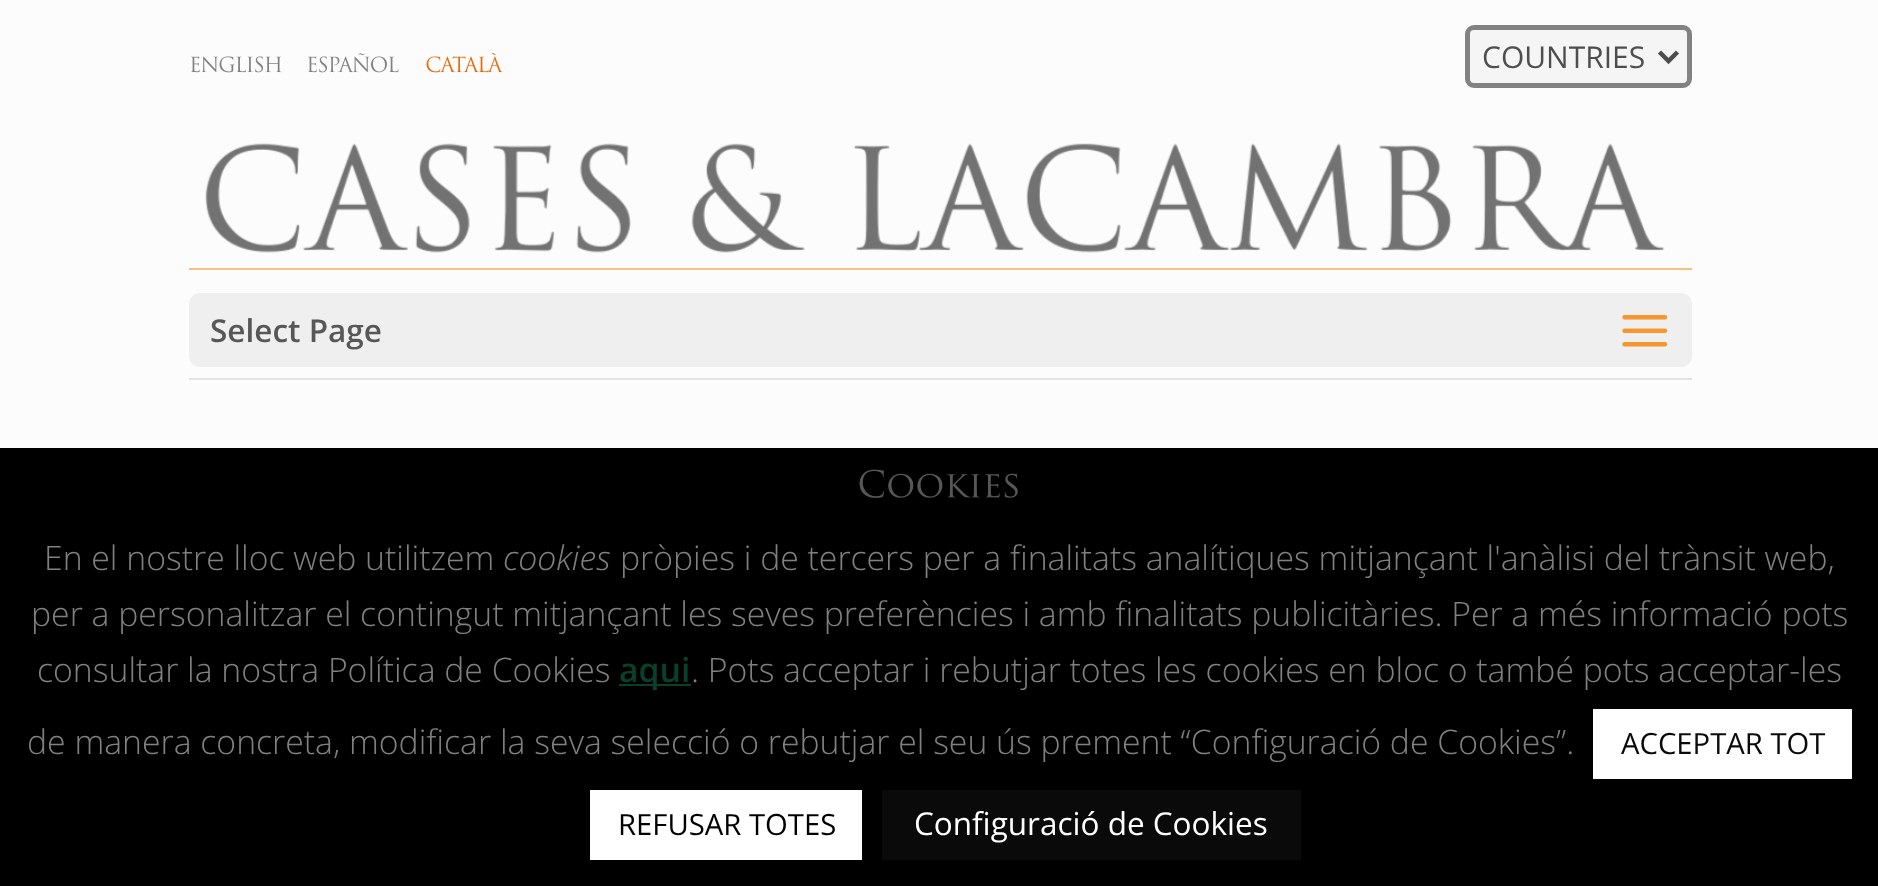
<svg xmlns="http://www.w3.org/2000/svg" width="1878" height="886">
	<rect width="100%" height="100%" fill="#000000" />
	<rect x="0" y="0" width="1878" height="448" fill="#FCFCFC" />
	<rect x="189" y="268" width="1503" height="2" fill="#F9BF81" />
	<image x="191" y="56" width="91" height="17" href="assets/img1.png" />
	<image x="308" y="53" width="91" height="20" href="assets/img2.png" />
	<image x="426" y="53" width="77" height="20" href="assets/img3.png" />
	<rect x="1467.5" y="27.5" width="222" height="58" rx="6.5" fill="#F5F5F5" stroke="#828282" stroke-width="5" />
	<path d="M1659.5 52L1668.5 61L1677.5 52" fill="none" stroke="#4E4E4E" stroke-width="4.5" />
	<text x="1482" y="68" font-family="Open Sans" font-size="30" fill="#4E4E4E">COUNTRIES</text>
	<image x="205" y="143" width="1460" height="110" href="assets/img4.png" />
	<rect x="189" y="378" width="1503" height="2" fill="#E3E3E3" />
	<rect x="189" y="293" width="1503" height="74" rx="11" fill="#EFEFEF" />
	<text x="210" y="342" font-family="Open Sans" font-size="31.5" font-weight="600" fill="#575757">Select Page</text>
	<image x="1622" y="315" width="46" height="32" href="assets/img5.png" />
	<image x="859" y="469" width="159" height="29" href="assets/img6.png" />
	<text x="44" y="570" font-family="Open Sans" font-size="33.75" font-weight="300" fill="#808080">En el nostre lloc web utilitzem</text>
	<text x="503" y="570" font-family="Open Sans" font-size="33.75" font-weight="300" font-style="italic" fill="#808080">cookies</text>
	<g font-family="Open Sans" font-size="33.75" font-weight="300" fill="#808080">
		<text x="620" y="570">pròpies i de tercers per a finalitats analítiques mitjançant l'anàlisi del trànsit web,</text>
		<text x="31" y="626">per a personalitzar el contingut mitjançant les seves preferències i amb finalitats publicitàries. Per a més informació pots</text>
		<text x="37" y="682">consultar la nostra Política de Cookies</text>
	</g>
	<rect x="619" y="684" width="72" height="2" fill="#08402C" />
	<text x="619" y="682" font-family="Open Sans" font-size="33.75" font-weight="600" fill="#08402C">aqui</text>
	<g font-family="Open Sans" font-size="33.75" font-weight="300" fill="#808080">
		<text x="691" y="682">. Pots acceptar i rebutjar totes les cookies en bloc o també pots acceptar-les</text>
		<text x="27" y="754">de manera concreta, modificar la seva selecció o rebutjar el seu ús prement “Configuració de Cookies”.</text>
	</g>
	<rect x="1593" y="709" width="259" height="70" fill="#FFFFFF" />
	<text x="1621" y="754" font-family="Open Sans" font-size="29.25" fill="#0A0A0A">ACCEPTAR TOT</text>
	<rect x="590" y="790" width="272" height="70" fill="#FFFFFF" />
	<text x="618" y="835" font-family="Open Sans" font-size="29.25" fill="#000000">REFUSAR TOTES</text>
	<rect x="882" y="790" width="419" height="70" fill="#0A0A0A" />
	<text x="914" y="835" font-family="Open Sans" font-size="31.5" fill="#FFFFFF">Configuració de Cookies</text>
</svg>
